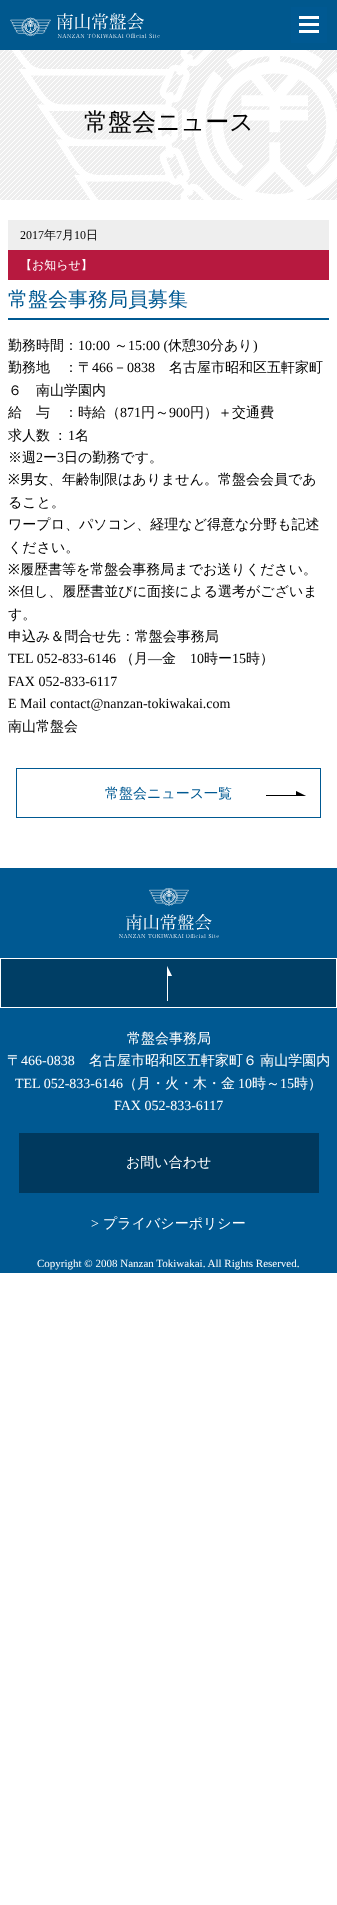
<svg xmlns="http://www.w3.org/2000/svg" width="337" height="1905">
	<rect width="100%" height="100%" fill="#FFFFFF" />
	<rect x="0" y="0" width="337" height="50" fill="#00588E" />
	<image x="10" y="13" width="150" height="25" href="assets/img1.png" />
	<rect x="291" y="7" width="36" height="36" fill="#005992" />
	<rect x="299" y="16" width="20" height="3" fill="#FFFFFF" />
	<rect x="299" y="23" width="20" height="3" fill="#FFFFFF" />
	<rect x="299" y="30" width="20" height="3" fill="#FFFFFF" />
	<image x="0" y="50" width="337" height="150" href="assets/img2.png" />
	<image x="12" y="50" width="325" height="150" href="assets/img3.png" />
	<text x="84" y="130" font-family="WenQuanYi Zen Hei" font-size="24" font-weight="500" fill="#000000">常盤会ニュース</text>
	<rect x="8" y="220" width="321" height="30" fill="#EEEEEE" />
	<text x="20" y="239" font-family="Liberation Serif" font-size="12" fill="#000000">2017</text>
	<text x="44" y="239" font-family="WenQuanYi Zen Hei" font-size="12" font-weight="500" fill="#000000">年</text>
	<text x="56" y="239" font-family="Liberation Serif" font-size="12" fill="#000000">7</text>
	<text x="62" y="239" font-family="WenQuanYi Zen Hei" font-size="12" font-weight="500" fill="#000000">月</text>
	<text x="74" y="239" font-family="Liberation Serif" font-size="12" fill="#000000">10</text>
	<text x="86" y="239" font-family="WenQuanYi Zen Hei" font-size="12" font-weight="500" fill="#000000">日</text>
	<rect x="8" y="250" width="321" height="30" fill="#B7193F" />
	<text x="20" y="269" font-family="WenQuanYi Zen Hei" font-size="12" font-weight="500" fill="#FFFFFF">【お知らせ】</text>
	<rect x="8" y="318" width="321" height="2" fill="#005992" />
	<text x="8" y="306" font-family="WenQuanYi Zen Hei" font-size="20" font-weight="500" fill="#005992">常盤会事務局員募集</text>
	<text x="8" y="350" font-family="WenQuanYi Zen Hei" font-size="14" font-weight="500" fill="#000000">勤務時間：</text>
	<text x="78" y="350" font-family="Liberation Serif" font-size="14" fill="#000000">10:00</text>
	<text x="114" y="350" font-family="WenQuanYi Zen Hei" font-size="14" font-weight="500" fill="#000000">～</text>
	<text x="128" y="350" font-family="Liberation Serif" font-size="14" fill="#000000">15:00 (</text>
	<text x="168" y="350" font-family="WenQuanYi Zen Hei" font-size="14" font-weight="500" fill="#000000">休憩</text>
	<text x="196" y="350" font-family="Liberation Serif" font-size="14" fill="#000000">30</text>
	<text x="210" y="350" font-family="WenQuanYi Zen Hei" font-size="14" font-weight="500" fill="#000000">分あり</text>
	<text x="253" y="350" font-family="Liberation Serif" font-size="14" fill="#000000">)</text>
	<text x="8" y="372" font-family="WenQuanYi Zen Hei" font-size="14" font-weight="500" fill="#000000">勤務地　：〒</text>
	<text x="92" y="372" font-family="Liberation Serif" font-size="14" fill="#000000">466</text>
	<text x="113" y="372" font-family="WenQuanYi Zen Hei" font-size="14" font-weight="500" fill="#000000">－</text>
	<text x="127" y="372" font-family="Liberation Serif" font-size="14" fill="#000000">0838</text>
	<g font-family="WenQuanYi Zen Hei" font-size="14" font-weight="500" fill="#000000">
		<text x="169" y="372">名古屋市昭和区五軒家町</text>
		<text x="8" y="395">６　南山学園内</text>
		<text x="8" y="417">給　与　：時給（</text>
	</g>
	<text x="120" y="417" font-family="Liberation Serif" font-size="14" fill="#000000">871</text>
	<text x="141" y="417" font-family="WenQuanYi Zen Hei" font-size="14" font-weight="500" fill="#000000">円～</text>
	<text x="169" y="417" font-family="Liberation Serif" font-size="14" fill="#000000">900</text>
	<g font-family="WenQuanYi Zen Hei" font-size="14" font-weight="500" fill="#000000">
		<text x="190" y="417">円）＋交通費</text>
		<text x="8" y="440" word-spacing="-1">求人数 ：</text>
	</g>
	<text x="68" y="440" font-family="Liberation Serif" font-size="14" fill="#000000">1</text>
	<g font-family="WenQuanYi Zen Hei" font-size="14" font-weight="500" fill="#000000">
		<text x="75" y="440">名</text>
		<text x="8" y="462">※週</text>
	</g>
	<text x="36" y="462" font-family="Liberation Serif" font-size="14" fill="#000000">2</text>
	<text x="43" y="462" font-family="WenQuanYi Zen Hei" font-size="14" font-weight="500" fill="#000000">ー</text>
	<text x="57" y="462" font-family="Liberation Serif" font-size="14" fill="#000000">3</text>
	<text x="64" y="462" font-family="WenQuanYi Zen Hei" font-size="14" font-weight="500" fill="#000000">日の勤務です。</text>
	<text x="8" y="484" font-family="Noto Sans" font-size="14" fill="#000000">※</text>
	<g font-family="WenQuanYi Zen Hei" font-size="14" font-weight="500" fill="#000000">
		<text x="20" y="484">男女、年齢制限はありません。常盤会会員であ</text>
		<text x="8" y="507">ること。</text>
		<text x="8" y="529">ワープロ、パソコン、経理など得意な分野も記述</text>
		<text x="8" y="552">ください。</text>
	</g>
	<text x="8" y="574" font-family="Noto Sans" font-size="14" fill="#000000">※</text>
	<text x="20" y="574" font-family="WenQuanYi Zen Hei" font-size="14" font-weight="500" fill="#000000">履歴書等を常盤会事務局までお送りください。</text>
	<text x="8" y="596" font-family="Noto Sans" font-size="14" fill="#000000">※</text>
	<g font-family="WenQuanYi Zen Hei" font-size="14" font-weight="500" fill="#000000">
		<text x="20" y="596">但し、履歴書並びに面接による選考がございま</text>
		<text x="8" y="619">す。</text>
		<text x="8" y="641">申込み＆問合せ先：常盤会事務局</text>
	</g>
	<text x="8" y="663" font-family="Liberation Serif" font-size="14" fill="#000000">TEL 052-833-6146</text>
	<text x="120" y="663" font-family="WenQuanYi Zen Hei" font-size="14" font-weight="500" fill="#000000">（月</text>
	<text x="148" y="663" font-family="Liberation Serif" font-size="14" fill="#000000">―</text>
	<text x="162" y="663" font-family="WenQuanYi Zen Hei" font-size="14" font-weight="500" fill="#000000">金</text>
	<text x="190" y="663" font-family="Liberation Serif" font-size="14" fill="#000000">10</text>
	<text x="204" y="663" font-family="WenQuanYi Zen Hei" font-size="14" font-weight="500" fill="#000000">時ー</text>
	<text x="232" y="663" font-family="Liberation Serif" font-size="14" fill="#000000">15</text>
	<text x="246" y="663" font-family="WenQuanYi Zen Hei" font-size="14" font-weight="500" fill="#000000">時）</text>
	<g font-family="Liberation Serif" font-size="14" fill="#000000">
		<text x="8" y="686">FAX 052-833-6117</text>
		<text x="8" y="708">E Mail contact@nanzan-tokiwakai.com</text>
	</g>
	<text x="8" y="731" font-family="WenQuanYi Zen Hei" font-size="14" font-weight="500" fill="#000000">南山常盤会</text>
	<image x="266" y="791" width="40" height="5" href="assets/img4.png" />
	<rect x="16.5" y="768.5" width="304" height="49" fill="none" stroke="#005992" />
	<text x="105" y="798" font-family="WenQuanYi Zen Hei" font-size="14" font-weight="500" fill="#005992">常盤会ニュース一覧</text>
	<rect x="0" y="868" width="337" height="405" fill="#005992" />
	<image x="119" y="888" width="100" height="50" href="assets/img5.png" />
	<rect x="1" y="959" width="335" height="48" fill="#003E65" />
	<image x="167" y="966" width="5" height="35" href="assets/img6.png" />
	<rect x="0.5" y="958.5" width="336" height="49" fill="none" stroke="#FFFFFF" />
	<g font-family="WenQuanYi Zen Hei" font-size="14" font-weight="500" fill="#FFFFFF">
		<text x="127" y="1043">常盤会事務局</text>
		<text x="7" y="1065">〒</text>
	</g>
	<text x="21" y="1065" font-family="Liberation Serif" font-size="14" fill="#FFFFFF">466-0838</text>
	<text x="89" y="1065" word-spacing="-1" font-family="WenQuanYi Zen Hei" font-size="14" font-weight="500" fill="#FFFFFF">名古屋市昭和区五軒家町６ 南山学園内</text>
	<text x="15" y="1088" font-family="Liberation Serif" font-size="14" fill="#FFFFFF">TEL 052-833-6146</text>
	<text x="123" y="1088" font-family="WenQuanYi Zen Hei" font-size="14" font-weight="500" fill="#FFFFFF">（月・火・木・金</text>
	<text x="238" y="1088" font-family="Liberation Serif" font-size="14" fill="#FFFFFF">10</text>
	<text x="252" y="1088" font-family="WenQuanYi Zen Hei" font-size="14" font-weight="500" fill="#FFFFFF">時～</text>
	<text x="280" y="1088" font-family="Liberation Serif" font-size="14" fill="#FFFFFF">15</text>
	<text x="294" y="1088" font-family="WenQuanYi Zen Hei" font-size="14" font-weight="500" fill="#FFFFFF">時）</text>
	<text x="114" y="1110" font-family="Liberation Serif" font-size="14" fill="#FFFFFF">FAX 052-833-6117</text>
	<rect x="19" y="1133" width="300" height="60" fill="#00395E" />
	<text x="126" y="1167" font-family="WenQuanYi Zen Hei" font-size="14" font-weight="500" fill="#FFFFFF">お問い合わせ</text>
	<text x="91" y="1228" font-family="Liberation Serif" font-size="14" fill="#FFFFFF">&gt;</text>
	<text x="103" y="1228" font-family="WenQuanYi Zen Hei" font-size="14" font-weight="500" fill="#FFFFFF">プライバシーポリシー</text>
	<text x="37" y="1267" font-family="Liberation Serif" font-size="11" fill="#FFFFFF">Copyright © 2008 Nanzan Tokiwakai. All Rights Reserved.</text>
</svg>
